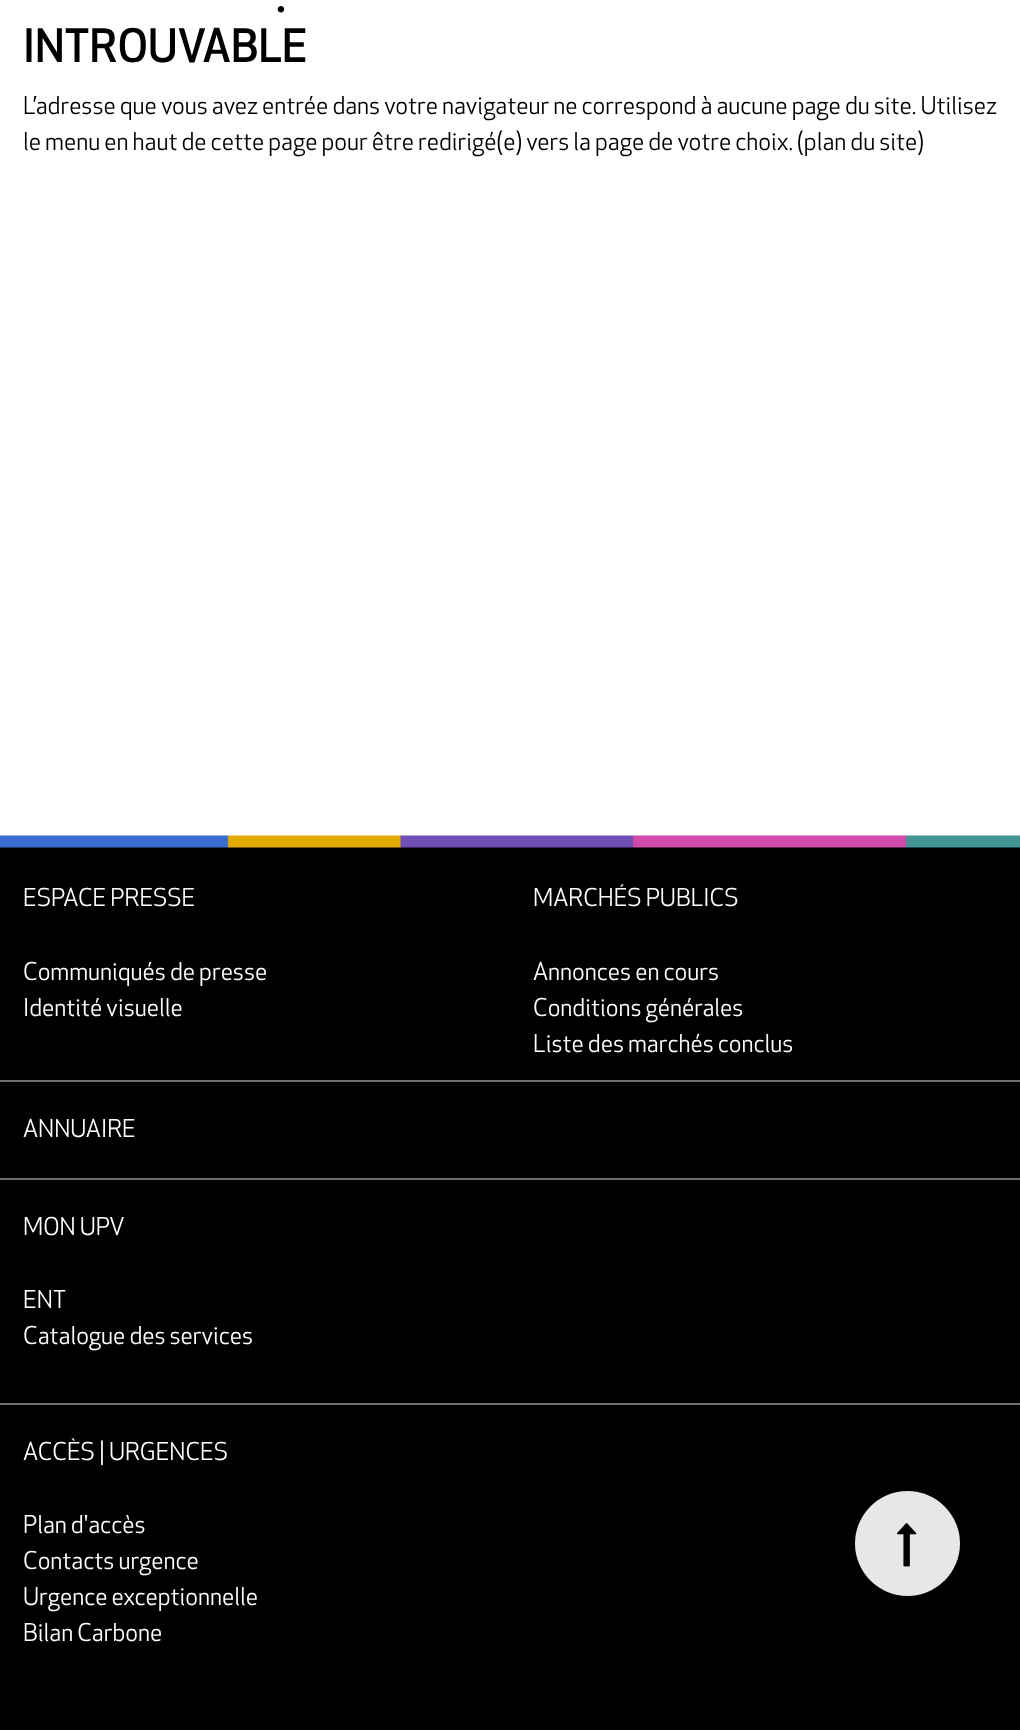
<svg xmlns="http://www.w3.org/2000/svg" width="1020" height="1730">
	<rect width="100%" height="100%" fill="#FFFFFF" />
	<g font-family="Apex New" font-size="45" font-weight="500" fill="#000000">
		<text x="276" y="12">.</text>
		<text x="23" y="62">INTROUVABLE</text>
	</g>
	<g font-family="Apex New" font-size="24" fill="#000000">
		<text x="23" y="114">L’adresse que vous avez entrée dans votre navigateur ne correspond à aucune page du site. Utilisez</text>
		<text x="23" y="150">le menu en haut de cette page pour être redirigé(e) vers la page de votre choix. (plan du site)</text>
	</g>
	<rect x="0" y="847" width="1020" height="883" fill="#000000" />
	<image x="0" y="835" width="1020" height="13" href="assets/img1.png" />
	<g font-family="Apex New" font-size="24" fill="#FFFFFF">
		<text x="23" y="906">ESPACE PRESSE</text>
		<text x="23" y="980">Communiqués de presse</text>
		<text x="23" y="1016">Identité visuelle</text>
		<text x="533" y="906">MARCHÉS PUBLICS</text>
		<text x="533" y="980">Annonces en cours</text>
		<text x="533" y="1016">Conditions générales</text>
		<text x="533" y="1052">Liste des marchés conclus</text>
	</g>
	<rect x="0" y="1080" width="1020" height="2" fill="#6D6E71" />
	<text x="23" y="1137" font-family="Apex New" font-size="24" fill="#FFFFFF">ANNUAIRE</text>
	<rect x="0" y="1178" width="1020" height="2" fill="#6D6E71" />
	<g font-family="Apex New" font-size="24" fill="#FFFFFF">
		<text x="23" y="1235">MON UPV</text>
		<text x="23" y="1308">ENT</text>
		<text x="23" y="1344">Catalogue des services</text>
	</g>
	<rect x="0" y="1403" width="1020" height="2" fill="#6D6E71" />
	<g font-family="Apex New" font-size="24" fill="#FFFFFF">
		<text x="23" y="1460">ACCÈS | URGENCES</text>
		<text x="23" y="1533">Plan d'accès</text>
		<text x="23" y="1569">Contacts urgence</text>
		<text x="23" y="1605">Urgence exceptionnelle</text>
		<text x="23" y="1641">Bilan Carbone</text>
	</g>
	<circle cx="907.5" cy="1543.5" r="52.5" fill="#E7E7E8" />
	<image x="897" y="1523" width="20" height="44" href="assets/img2.png" />
</svg>
